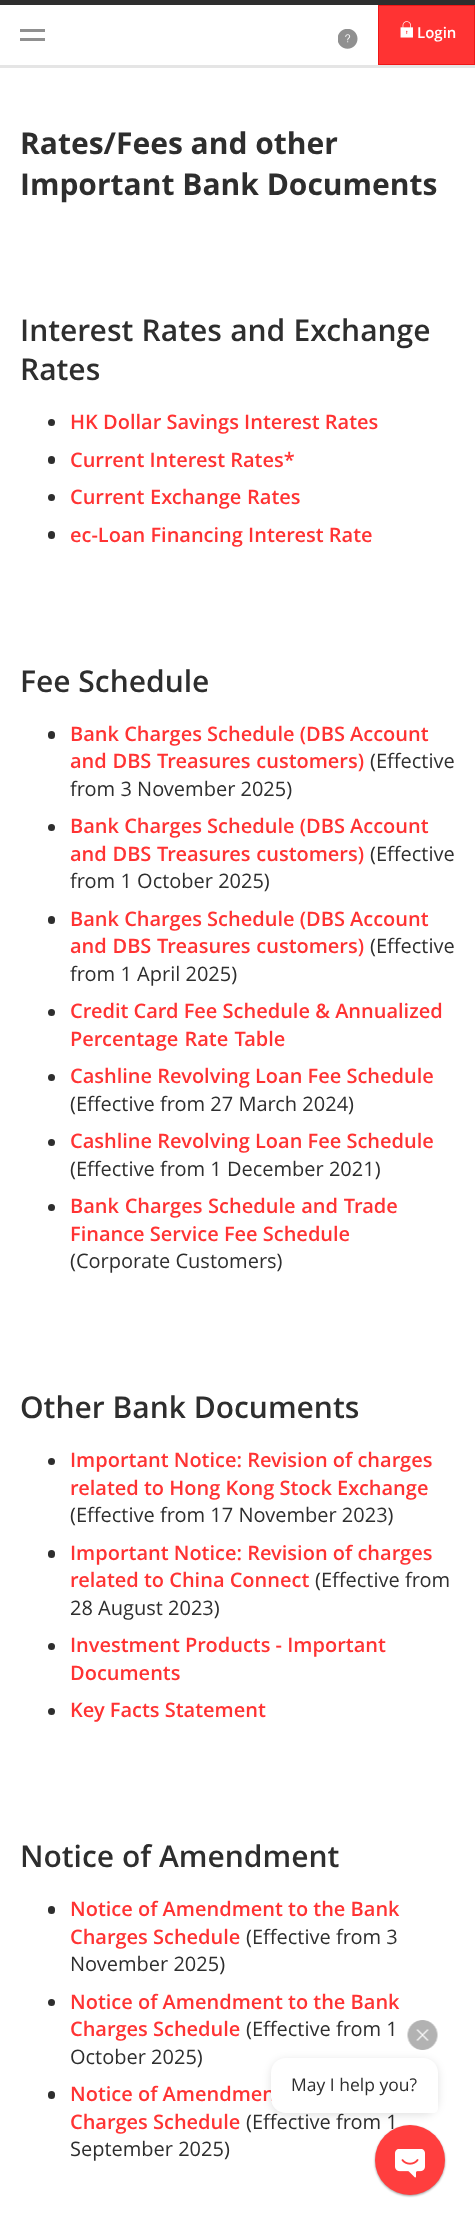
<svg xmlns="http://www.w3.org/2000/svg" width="475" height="2224">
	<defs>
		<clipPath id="clip1"><rect x="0" y="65" width="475" height="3" /></clipPath>
	</defs>
	<rect width="100%" height="100%" fill="#FFFFFF" />
	<g clip-path="url(#clip1)">
		<rect x="0" y="3" width="475" height="65" fill="#000000" fill-opacity="0.1" filter="blur(0.5px)" />
	</g>
	<rect x="0" y="0" width="475" height="5" fill="#2E2E2E" />
	<rect x="20" y="29" width="25" height="3" fill="#909090" />
	<rect x="20" y="38" width="25" height="3" fill="#909090" />
	<image x="338" y="29" width="20" height="20" href="assets/img1.png" />
	<rect x="378.5" y="5.5" width="96" height="59" fill="#FF3333" stroke="#EE1818" />
	<image x="400" y="21" width="13" height="17" href="assets/img2.png" />
	<text x="417" y="38" font-family="Open Sans" font-size="15" font-weight="600" fill="#FFFFFF">Login</text>
	<g font-family="Open Sans" font-size="30" font-weight="700" fill="#2E2E2E">
		<text x="20" y="154">Rates/Fees and other</text>
		<text x="20" y="195">Important Bank Documents</text>
	</g>
	<g font-family="Open Sans" font-size="30" font-weight="600" fill="#2E2E2E">
		<text x="20" y="341" word-spacing="0.5">Interest Rates and Exchange</text>
		<text x="20" y="380">Rates</text>
	</g>
	<circle cx="51.5" cy="422.5" r="3.5" fill="#2E2E2E" />
	<text x="70" y="429" font-family="Open Sans" font-size="20" font-weight="600" fill="#FF3333">HK Dollar Savings Interest Rates</text>
	<rect x="48" y="456" width="7" height="8" rx="3.5" fill="#2E2E2E" />
	<text x="70" y="467" font-family="Open Sans" font-size="20" font-weight="600" fill="#FF3333">Current Interest Rates*</text>
	<circle cx="51.5" cy="497.5" r="3.5" fill="#2E2E2E" />
	<text x="70" y="504" word-spacing="0.5" font-family="Open Sans" font-size="20" font-weight="600" fill="#FF3333">Current Exchange Rates</text>
	<rect x="48" y="531" width="7" height="8" rx="3.5" fill="#2E2E2E" />
	<text x="70" y="542" font-family="Open Sans" font-size="20" font-weight="600" fill="#FF3333">ec-Loan Financing Interest Rate</text>
	<text x="20" y="692" font-family="Open Sans" font-size="30" font-weight="600" fill="#2E2E2E">Fee Schedule</text>
	<rect x="48" y="731" width="7" height="8" rx="3.5" fill="#2E2E2E" />
	<g font-family="Open Sans" font-size="20" font-weight="600" fill="#FF3333">
		<text x="70" y="741">Bank Charges Schedule (DBS Account</text>
		<text x="70" y="768" word-spacing="0.5">and DBS Treasures customers)</text>
	</g>
	<g font-family="Open Sans" font-size="20" fill="#2E2E2E">
		<text x="370" y="768">(Effective</text>
		<text x="70" y="796">from 3 November 2025)</text>
	</g>
	<circle cx="51.5" cy="827.5" r="3.5" fill="#2E2E2E" />
	<g font-family="Open Sans" font-size="20" font-weight="600" fill="#FF3333">
		<text x="70" y="833">Bank Charges Schedule (DBS Account</text>
		<text x="70" y="861" word-spacing="0.5">and DBS Treasures customers)</text>
	</g>
	<g font-family="Open Sans" font-size="20" fill="#2E2E2E">
		<text x="370" y="861">(Effective</text>
		<text x="70" y="888">from 1 October 2025)</text>
	</g>
	<rect x="48" y="916" width="7" height="8" rx="3.5" fill="#2E2E2E" />
	<g font-family="Open Sans" font-size="20" font-weight="600" fill="#FF3333">
		<text x="70" y="926">Bank Charges Schedule (DBS Account</text>
		<text x="70" y="953" word-spacing="0.5">and DBS Treasures customers)</text>
	</g>
	<g font-family="Open Sans" font-size="20" fill="#2E2E2E">
		<text x="370" y="953">(Effective</text>
		<text x="70" y="981">from 1 April 2025)</text>
	</g>
	<circle cx="51.5" cy="1012.5" r="3.5" fill="#2E2E2E" />
	<g font-family="Open Sans" font-size="20" font-weight="600" fill="#FF3333">
		<text x="70" y="1018">Credit Card Fee Schedule &amp; Annualized</text>
		<text x="70" y="1046" word-spacing="1">Percentage Rate Table</text>
	</g>
	<circle cx="51.5" cy="1077.5" r="3.5" fill="#2E2E2E" />
	<text x="70" y="1083" font-family="Open Sans" font-size="20" font-weight="600" fill="#FF3333">Cashline Revolving Loan Fee Schedule</text>
	<text x="70" y="1111" font-family="Open Sans" font-size="20" fill="#2E2E2E">(Effective from 27 March 2024)</text>
	<circle cx="51.5" cy="1142.5" r="3.5" fill="#2E2E2E" />
	<text x="70" y="1148" font-family="Open Sans" font-size="20" font-weight="600" fill="#FF3333">Cashline Revolving Loan Fee Schedule</text>
	<text x="70" y="1176" font-family="Open Sans" font-size="20" fill="#2E2E2E">(Effective from 1 December 2021)</text>
	<circle cx="51.5" cy="1207.5" r="3.5" fill="#2E2E2E" />
	<g font-family="Open Sans" font-size="20" font-weight="600" fill="#FF3333">
		<text x="70" y="1213" word-spacing="0.5">Bank Charges Schedule and Trade</text>
		<text x="70" y="1241">Finance Service Fee Schedule</text>
	</g>
	<text x="70" y="1268" font-family="Open Sans" font-size="20" fill="#2E2E2E">(Corporate Customers)</text>
	<text x="20" y="1418" font-family="Open Sans" font-size="30" font-weight="600" fill="#2E2E2E">Other Bank Documents</text>
	<circle cx="51.5" cy="1461.5" r="3.5" fill="#2E2E2E" />
	<g font-family="Open Sans" font-size="20" font-weight="600" fill="#FF3333">
		<text x="70" y="1467">Important Notice: Revision of charges</text>
		<text x="70" y="1495">related to Hong Kong Stock Exchange</text>
	</g>
	<text x="70" y="1522" font-family="Open Sans" font-size="20" fill="#2E2E2E">(Effective from 17 November 2023)</text>
	<rect x="48" y="1550" width="7" height="8" rx="3.5" fill="#2E2E2E" />
	<g font-family="Open Sans" font-size="20" font-weight="600" fill="#FF3333">
		<text x="70" y="1560">Important Notice: Revision of charges</text>
		<text x="70" y="1587">related to China Connect</text>
	</g>
	<g font-family="Open Sans" font-size="20" fill="#2E2E2E">
		<text x="315" y="1587">(Effective from</text>
		<text x="70" y="1615">28 August 2023)</text>
	</g>
	<circle cx="51.5" cy="1646.5" r="3.5" fill="#2E2E2E" />
	<g font-family="Open Sans" font-size="20" font-weight="600" fill="#FF3333">
		<text x="70" y="1652">Investment Products - Important</text>
		<text x="70" y="1680">Documents</text>
	</g>
	<circle cx="51.5" cy="1711.5" r="3.5" fill="#2E2E2E" />
	<text x="70" y="1717" font-family="Open Sans" font-size="20" font-weight="600" fill="#FF3333">Key Facts Statement</text>
	<text x="20" y="1867" font-family="Open Sans" font-size="30" font-weight="600" fill="#2E2E2E">Notice of Amendment</text>
	<rect x="48" y="1906" width="7" height="8" rx="3.5" fill="#2E2E2E" />
	<g font-family="Open Sans" font-size="20" font-weight="600" fill="#FF3333">
		<text x="70" y="1916">Notice of Amendment to the Bank</text>
		<text x="70" y="1944">Charges Schedule</text>
	</g>
	<g font-family="Open Sans" font-size="20" fill="#2E2E2E">
		<text x="246" y="1944">(Effective from 3</text>
		<text x="70" y="1971">November 2025)</text>
	</g>
	<circle cx="51.5" cy="2002.5" r="3.5" fill="#2E2E2E" />
	<g font-family="Open Sans" font-size="20" font-weight="600" fill="#FF3333">
		<text x="70" y="2009">Notice of Amendment to the Bank</text>
		<text x="70" y="2036">Charges Schedule</text>
	</g>
	<g font-family="Open Sans" font-size="20" fill="#2E2E2E">
		<text x="246" y="2036">(Effective from 1</text>
		<text x="70" y="2064">October 2025)</text>
	</g>
	<rect x="48" y="2091" width="7" height="8" rx="3.5" fill="#2E2E2E" />
	<g font-family="Open Sans" font-size="20" font-weight="600" fill="#FF3333">
		<text x="70" y="2101">Notice of Amendmen</text>
		<text x="70" y="2129">Charges Schedule</text>
	</g>
	<g font-family="Open Sans" font-size="20" fill="#2E2E2E">
		<text x="246" y="2129">(Effective from 1</text>
		<text x="70" y="2156">September 2025)</text>
	</g>
	<rect x="271" y="2060" width="167" height="55" rx="15" fill="#000000" fill-opacity="0.12" filter="blur(4px)" />
	<image x="407" y="2020" width="31" height="30" href="assets/img3.png" />
	<path d="M286 2058H423C431.5 2058 438 2064.5 438 2073V2108C438 2111 436 2113 433 2113H286C277.5 2113 271 2106.5 271 2098V2073C271 2064.5 277.5 2058 286 2058Z" fill="#FFFFFF" />
	<text x="291" y="2091" font-family="'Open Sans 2'" font-size="17.5" fill="#2E2E2E">May I help you?</text>
	<rect x="375" y="2126" width="70" height="70" rx="35" fill="#000000" fill-opacity="0.4" filter="blur(1px)" />
	<circle cx="410" cy="2160" r="35" fill="#FF3E3E" />
	<image x="395" y="2149" width="30" height="29" href="assets/img4.png" />
</svg>
